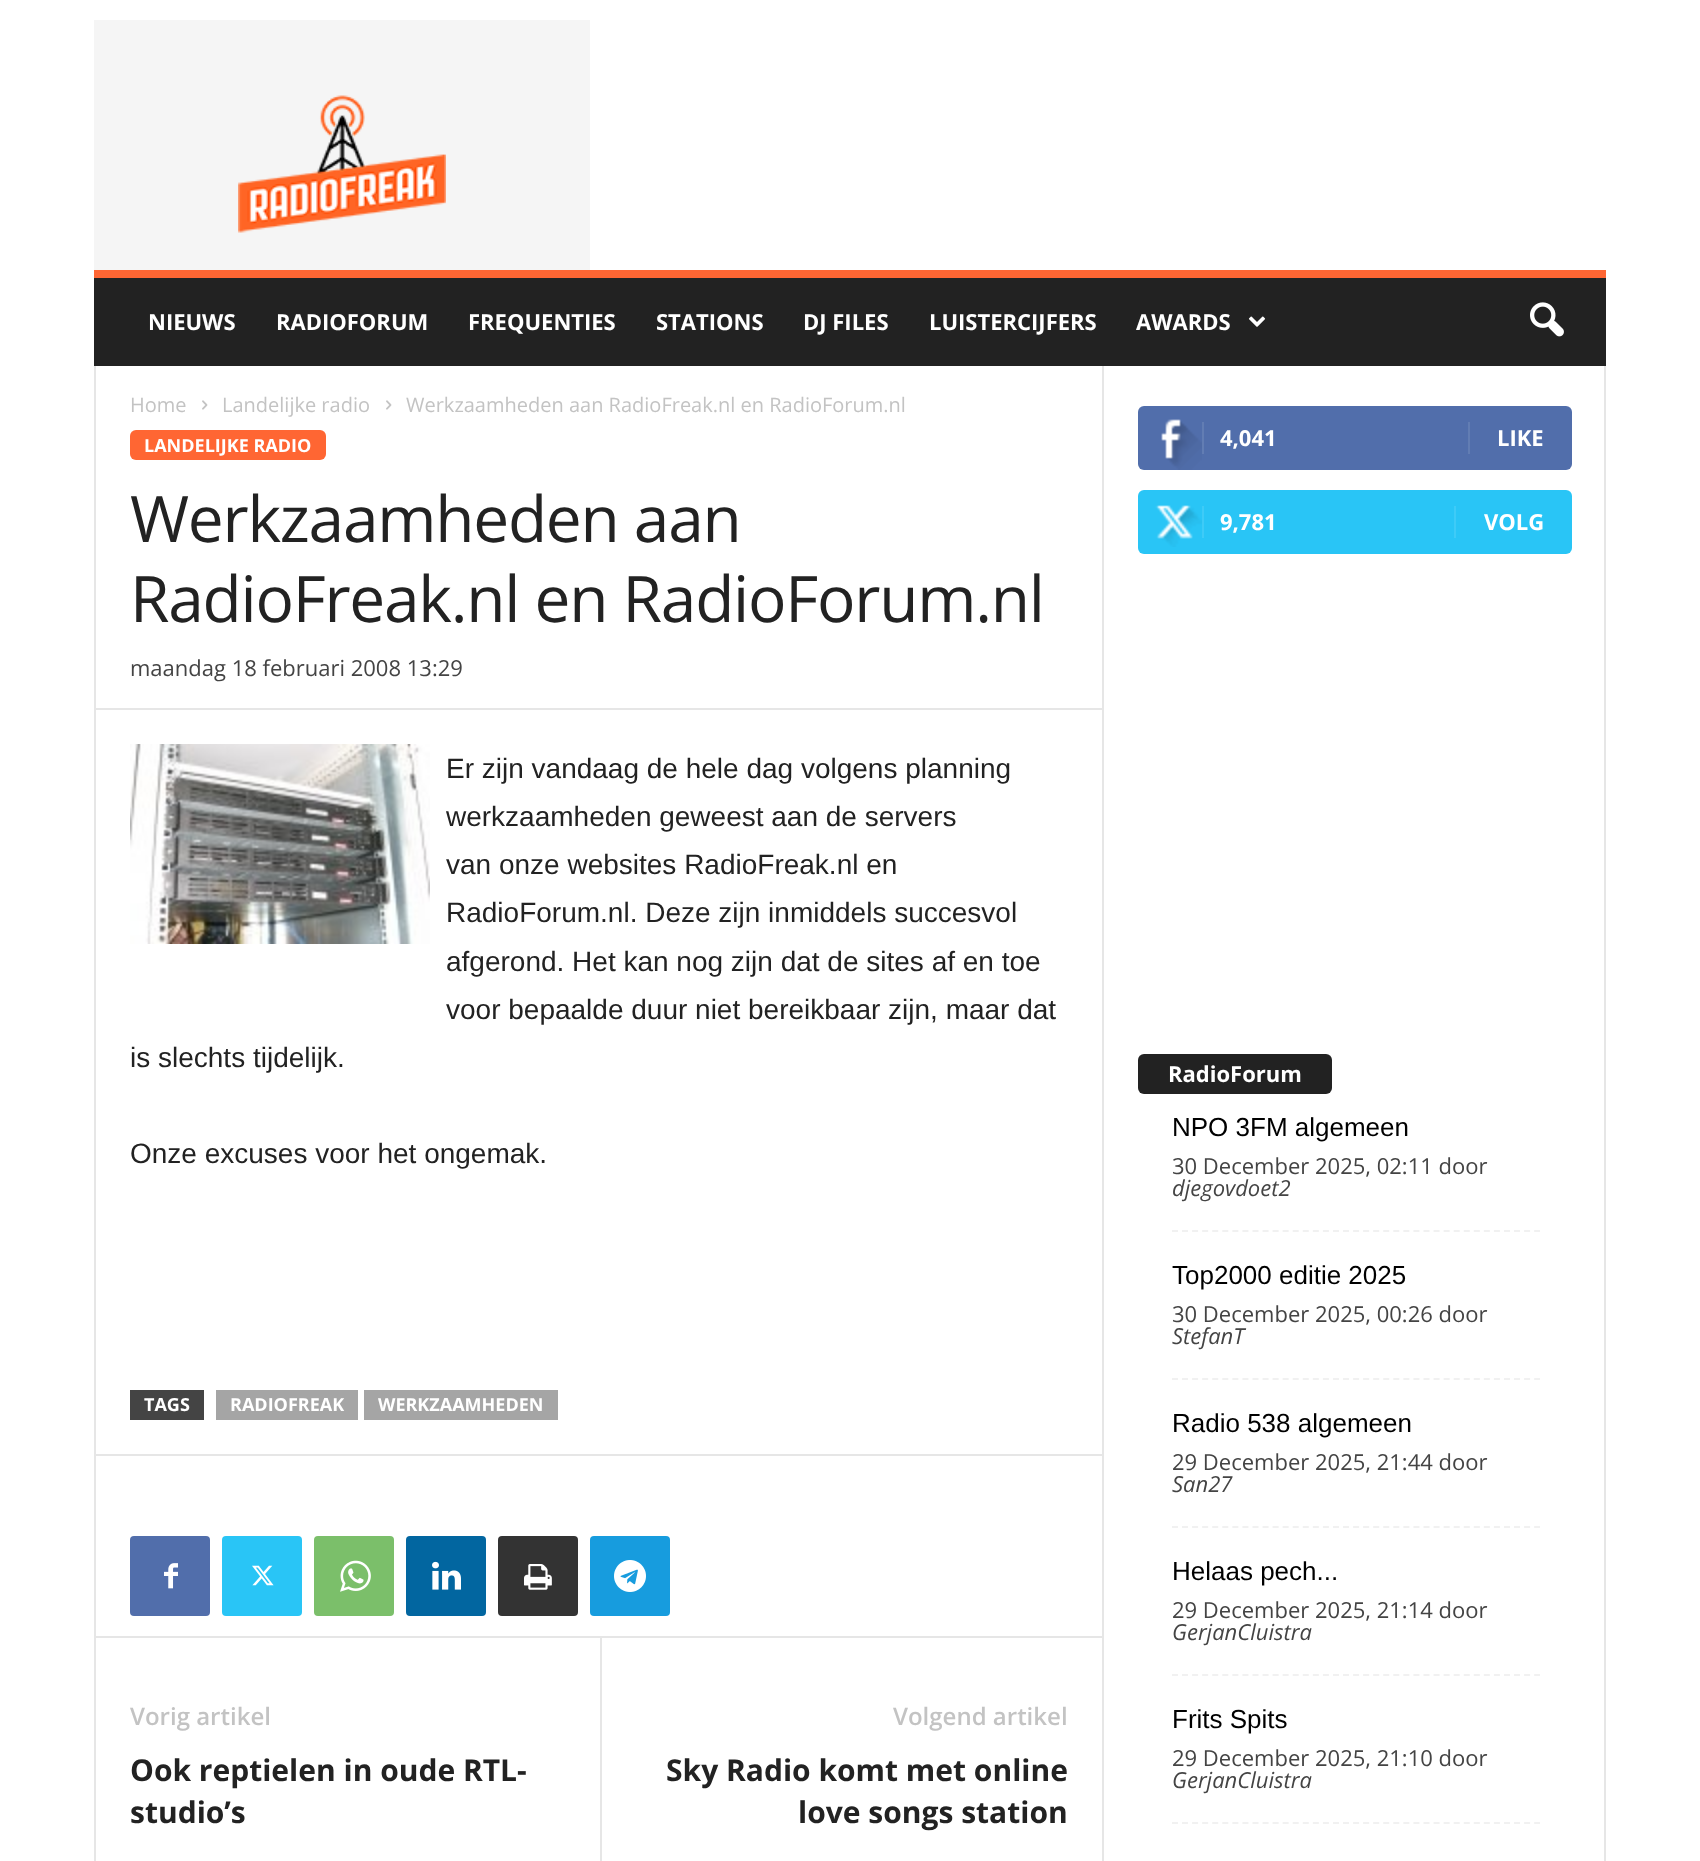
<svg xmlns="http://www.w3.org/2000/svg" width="1700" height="1861">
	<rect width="100%" height="100%" fill="#FFFFFF" />
	<rect x="94" y="20" width="496" height="250" fill="#F5F5F5" />
	<image x="238" y="95" width="208" height="138" href="assets/img1.png" />
	<rect x="94" y="278" width="1512" height="88" fill="#222222" />
	<rect x="94" y="270" width="1512" height="8" fill="#FF6633" />
	<g font-family="Open Sans" font-size="22" font-weight="700" fill="#FFFFFF">
		<text x="148" y="330">NIEUWS</text>
		<text x="276" y="330">RADIOFORUM</text>
		<text x="468" y="330">FREQUENTIES</text>
		<text x="656" y="330">STATIONS</text>
		<text x="803" y="330">DJ FILES</text>
		<text x="929" y="330">LUISTERCIJFERS</text>
		<text x="1136" y="330">AWARDS</text>
	</g>
	<image x="1248" y="316" width="18" height="11" href="assets/img2.png" />
	<image x="1530" y="302" width="34" height="35" href="assets/img3.png" />
	<rect x="94" y="366" width="2" height="1495" fill="#E6E6E6" />
	<text x="130" y="412" font-family="Open Sans" font-size="20" fill="#C3C3C3">Home</text>
	<image x="202" y="400" width="6" height="10" href="assets/img4.png" />
	<text x="222" y="412" font-family="Open Sans" font-size="20" fill="#C3C3C3">Landelijke radio</text>
	<image x="386" y="400" width="6" height="10" href="assets/img4.png" />
	<text x="406" y="412" font-family="Open Sans" font-size="20" fill="#C3C3C3">Werkzaamheden aan RadioFreak.nl en RadioForum.nl</text>
	<rect x="130" y="430" width="196" height="30" rx="6" fill="#FF6633" />
	<text x="144" y="452" font-family="Open Sans" font-size="18" font-weight="700" fill="#FFFFFF">LANDELIJKE RADIO</text>
	<g font-family="Open Sans" font-size="64" letter-spacing="-1.25" fill="#222222">
		<text x="130" y="542">Werkzaamheden aan</text>
		<text x="130" y="622">RadioFreak.nl en RadioForum.nl</text>
	</g>
	<text x="130" y="676" font-family="Open Sans" font-size="22" fill="#444444">maandag 18 februari 2008 13:29</text>
	<rect x="96" y="708" width="1006" height="2" fill="#E6E6E6" />
	<image x="130" y="744" width="300" height="200" href="assets/img5.png" />
	<g font-family="Liberation Sans" font-size="28" fill="#222222">
		<text x="446" y="778">Er zijn vandaag de hele dag volgens planning</text>
		<text x="446" y="826">werkzaamheden geweest aan de servers</text>
		<text x="446" y="874">van onze websites RadioFreak.nl en</text>
		<text x="446" y="922">RadioForum.nl. Deze zijn inmiddels succesvol</text>
		<text x="446" y="971">afgerond. Het kan nog zijn dat de sites af en toe</text>
		<text x="446" y="1019">voor bepaalde duur niet bereikbaar zijn, maar dat</text>
		<text x="130" y="1067">is slechts tijdelijk.</text>
		<text x="130" y="1163">Onze excuses voor het ongemak.</text>
	</g>
	<rect x="130" y="1390" width="74" height="30" fill="#444444" />
	<text x="144" y="1411" font-family="Open Sans" font-size="18" font-weight="700" fill="#FFFFFF">TAGS</text>
	<rect x="216" y="1390" width="142" height="30" fill="#A5A5A5" />
	<text x="230" y="1411" font-family="Open Sans" font-size="18" font-weight="700" fill="#FFFFFF">RADIOFREAK</text>
	<rect x="364" y="1390" width="194" height="30" fill="#A5A5A5" />
	<text x="378" y="1411" font-family="Open Sans" font-size="18" font-weight="700" fill="#FFFFFF">WERKZAAMHEDEN</text>
	<rect x="96" y="1454" width="1006" height="2" fill="#E6E6E6" />
	<rect x="130" y="1536" width="80" height="80" rx="4" fill="#516EAB" />
	<image x="164" y="1563" width="14" height="26" href="assets/img6.png" />
	<rect x="222" y="1536" width="80" height="80" rx="4" fill="#29C5F6" />
	<image x="252" y="1565" width="22" height="21" href="assets/img7.png" />
	<rect x="314" y="1536" width="80" height="80" rx="4" fill="#7BBF6A" />
	<image x="340" y="1560" width="31" height="32" href="assets/img8.png" />
	<rect x="406" y="1536" width="80" height="80" rx="4" fill="#0266A0" />
	<image x="432" y="1561" width="29" height="29" href="assets/img9.png" />
	<rect x="498" y="1536" width="80" height="80" rx="4" fill="#333333" />
	<image x="524" y="1564" width="28" height="26" href="assets/img10.png" />
	<rect x="590" y="1536" width="80" height="80" rx="4" fill="#179CDE" />
	<image x="614" y="1560" width="32" height="32" href="assets/img11.png" />
	<rect x="96" y="1636" width="1006" height="2" fill="#E6E6E6" />
	<text x="130" y="1725" font-family="Open Sans" font-size="24" font-weight="600" fill="#C3C3C3">Vorig artikel</text>
	<g font-family="Open Sans" font-size="30" font-weight="700" fill="#222222">
		<text x="130" y="1781">Ook reptielen in oude RTL-</text>
		<text x="130" y="1823">studio’s</text>
	</g>
	<rect x="600" y="1638" width="2" height="223" fill="#E6E6E6" />
	<text x="893" y="1725" font-family="Open Sans" font-size="24" font-weight="600" fill="#C3C3C3">Volgend artikel</text>
	<g font-family="Open Sans" font-size="30" font-weight="700" fill="#222222">
		<text x="666" y="1781">Sky Radio komt met online</text>
		<text x="798" y="1823">love songs station</text>
	</g>
	<rect x="1102" y="366" width="2" height="1495" fill="#E6E6E6" />
	<rect x="1138" y="406" width="434" height="64" rx="6" fill="#516EAB" />
	<image x="1161" y="419" width="41" height="51" href="assets/img12.png" />
	<rect x="1202" y="422" width="2" height="32" fill="#627DB3" />
	<text x="1220" y="446" font-family="Open Sans" font-size="22" font-weight="700" fill="#FFFFFF">4,041</text>
	<rect x="1468" y="422" width="2" height="32" fill="#627DB3" />
	<text x="1497" y="446" font-family="Open Sans" font-size="22" font-weight="700" fill="#FFFFFF">LIKE</text>
	<rect x="1138" y="490" width="434" height="64" rx="6" fill="#29C5F6" />
	<image x="1155" y="505" width="47" height="42" href="assets/img13.png" />
	<rect x="1202" y="506" width="2" height="32" fill="#3ECBF7" />
	<text x="1220" y="530" font-family="Open Sans" font-size="22" font-weight="700" fill="#FFFFFF">9,781</text>
	<rect x="1454" y="506" width="2" height="32" fill="#3ECBF7" />
	<text x="1484" y="530" font-family="Open Sans" font-size="22" font-weight="700" fill="#FFFFFF">VOLG</text>
	<rect x="1138" y="1054" width="194" height="40" rx="6" fill="#222222" />
	<text x="1168" y="1082" font-family="Open Sans" font-size="22" font-weight="700" fill="#FFFFFF">RadioForum</text>
	<path d="M1172 1231H1540" fill="none" stroke="#F1F1F1" stroke-width="2" stroke-dasharray="6 4.06" />
	<text x="1172" y="1136" font-family="Liberation Sans" font-size="26" fill="#000000">NPO 3FM algemeen</text>
	<text x="1172" y="1174" font-family="Open Sans" font-size="22" fill="#444444">30 December 2025, 02:11 door</text>
	<text x="1172" y="1196" font-family="Open Sans" font-size="22" font-style="italic" fill="#444444">djegovdoet2</text>
	<path d="M1172 1379H1540" fill="none" stroke="#F1F1F1" stroke-width="2" stroke-dasharray="6 4.06" />
	<text x="1172" y="1284" font-family="Liberation Sans" font-size="26" fill="#000000">Top2000 editie 2025</text>
	<text x="1172" y="1322" font-family="Open Sans" font-size="22" fill="#444444">30 December 2025, 00:26 door</text>
	<text x="1172" y="1344" font-family="Open Sans" font-size="22" font-style="italic" fill="#444444">StefanT</text>
	<path d="M1172 1527H1540" fill="none" stroke="#F1F1F1" stroke-width="2" stroke-dasharray="6 4.06" />
	<text x="1172" y="1432" font-family="Liberation Sans" font-size="26" fill="#000000">Radio 538 algemeen</text>
	<text x="1172" y="1470" font-family="Open Sans" font-size="22" fill="#444444">29 December 2025, 21:44 door</text>
	<text x="1172" y="1492" font-family="Open Sans" font-size="22" font-style="italic" fill="#444444">San27</text>
	<path d="M1172 1675H1540" fill="none" stroke="#F1F1F1" stroke-width="2" stroke-dasharray="6 4.06" />
	<text x="1172" y="1580" font-family="Liberation Sans" font-size="26" fill="#000000">Helaas pech...</text>
	<text x="1172" y="1618" font-family="Open Sans" font-size="22" fill="#444444">29 December 2025, 21:14 door</text>
	<text x="1172" y="1640" font-family="Open Sans" font-size="22" font-style="italic" fill="#444444">GerjanCluistra</text>
	<path d="M1172 1823H1540" fill="none" stroke="#F1F1F1" stroke-width="2" stroke-dasharray="6 4.06" />
	<text x="1172" y="1728" font-family="Liberation Sans" font-size="26" fill="#000000">Frits Spits</text>
	<text x="1172" y="1766" font-family="Open Sans" font-size="22" fill="#444444">29 December 2025, 21:10 door</text>
	<text x="1172" y="1788" font-family="Open Sans" font-size="22" font-style="italic" fill="#444444">GerjanCluistra</text>
	<rect x="1604" y="366" width="2" height="1495" fill="#E6E6E6" />
</svg>
